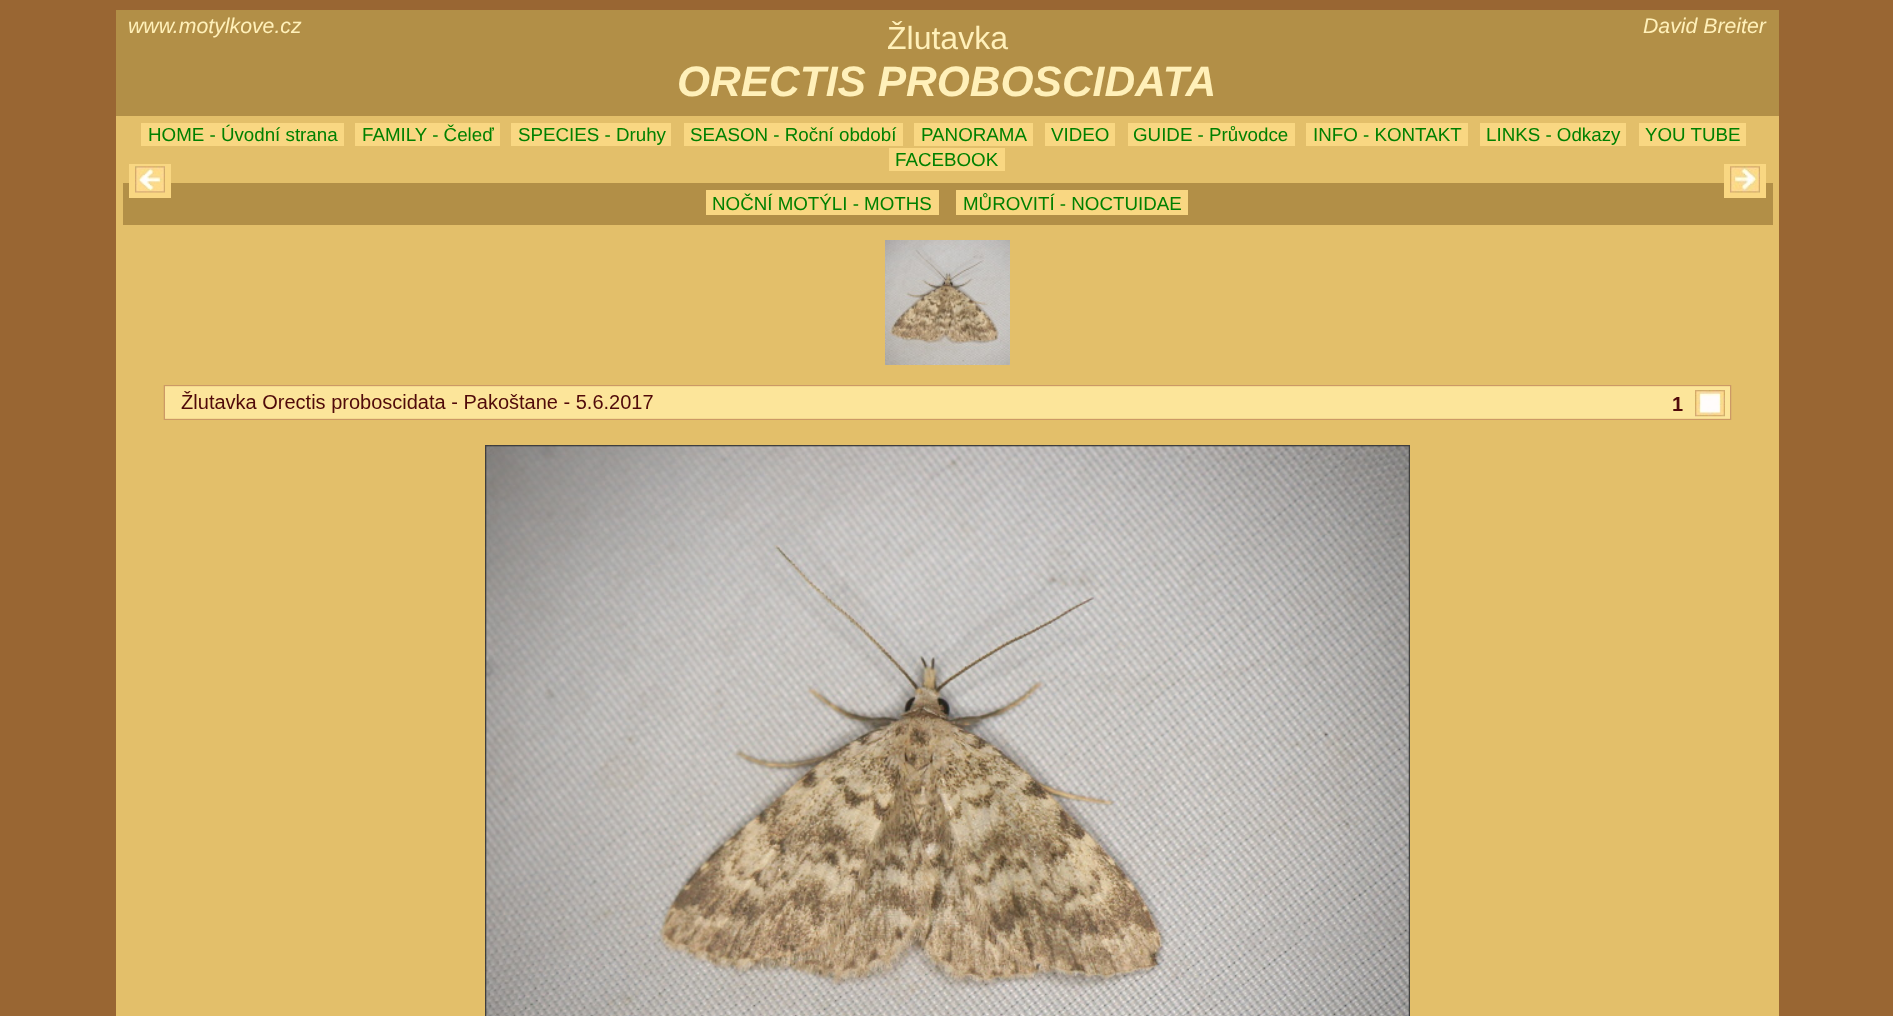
<svg xmlns="http://www.w3.org/2000/svg" width="1893" height="1016">
	<rect width="100%" height="100%" fill="#996633" />
	<rect x="116" y="116" width="1663" height="900" fill="#E3BF6A" />
	<rect x="116" y="10" width="1663" height="106" fill="#B28F47" />
	<text x="128" y="33" font-family="Liberation Sans" font-size="21.25" font-style="italic" fill="#FFF0B9">www.motylkove.cz</text>
	<text x="887" y="49" font-family="Liberation Sans" font-size="32" fill="#FFF0B9">Žlutavka</text>
	<text x="1643" y="33" font-family="Liberation Sans" font-size="21.25" font-style="italic" fill="#FFF0B9">David Breiter</text>
	<text x="677" y="96" font-family="Liberation Sans" font-size="42.5" font-weight="700" font-style="italic" fill="#FFF0B9">ORECTIS PROBOSCIDATA</text>
	<rect x="141" y="123" width="203" height="23" fill="#F9D782" />
	<text x="148" y="141" font-family="Liberation Sans" font-size="18.75" fill="#008000">HOME - Úvodní strana</text>
	<rect x="355" y="123" width="145" height="23" fill="#F9D782" />
	<text x="362" y="141" font-family="Liberation Sans" font-size="18.75" fill="#008000">FAMILY - Čeleď</text>
	<rect x="511" y="123" width="160" height="23" fill="#F9D782" />
	<text x="518" y="141" font-family="Liberation Sans" font-size="18.75" fill="#008000">SPECIES - Druhy</text>
	<rect x="684" y="123" width="219" height="23" fill="#F9D782" />
	<text x="690" y="141" font-family="Liberation Sans" font-size="18.75" fill="#008000">SEASON - Roční období</text>
	<rect x="914" y="123" width="119" height="23" fill="#F9D782" />
	<text x="921" y="141" font-family="Liberation Sans" font-size="18.75" fill="#008000">PANORAMA</text>
	<rect x="1045" y="123" width="70" height="23" fill="#F9D782" />
	<text x="1051" y="141" font-family="Liberation Sans" font-size="18.75" fill="#008000">VIDEO</text>
	<rect x="1128" y="123" width="167" height="23" fill="#F9D782" />
	<text x="1133" y="141" font-family="Liberation Sans" font-size="18.75" fill="#008000">GUIDE - Průvodce</text>
	<rect x="1306" y="123" width="162" height="23" fill="#F9D782" />
	<text x="1313" y="141" font-family="Liberation Sans" font-size="18.75" fill="#008000">INFO - KONTAKT</text>
	<rect x="1480" y="123" width="146" height="23" fill="#F9D782" />
	<text x="1486" y="141" font-family="Liberation Sans" font-size="18.75" fill="#008000">LINKS - Odkazy</text>
	<rect x="1639" y="123" width="107" height="23" fill="#F9D782" />
	<text x="1645" y="141" font-family="Liberation Sans" font-size="18.75" fill="#008000">YOU TUBE</text>
	<rect x="889" y="148" width="116" height="23" fill="#F9D782" />
	<text x="895" y="166" font-family="Liberation Sans" font-size="18.75" fill="#008000">FACEBOOK</text>
	<rect x="123" y="183" width="1650" height="42" fill="#B28F47" />
	<rect x="129" y="164" width="42" height="34" fill="#F9D782" />
	<image x="135" y="166" width="30" height="27" href="assets/img1.png" />
	<rect x="1724" y="164" width="42" height="34" fill="#F9D782" />
	<image x="1730" y="166" width="30" height="27" href="assets/img2.png" />
	<rect x="706" y="190" width="233" height="25" fill="#F9D782" />
	<text x="712" y="210" font-family="Liberation Sans" font-size="18.75" fill="#008000">NOČNÍ MOTÝLI - MOTHS</text>
	<rect x="956" y="190" width="232" height="25" fill="#F9D782" />
	<text x="963" y="210" font-family="Liberation Sans" font-size="18.75" fill="#008000">MŮROVITÍ - NOCTUIDAE</text>
	<image x="885" y="240" width="125" height="125" href="assets/img3.png" />
	<image x="163" y="385" width="1569" height="631" href="assets/img4.png" />
</svg>
